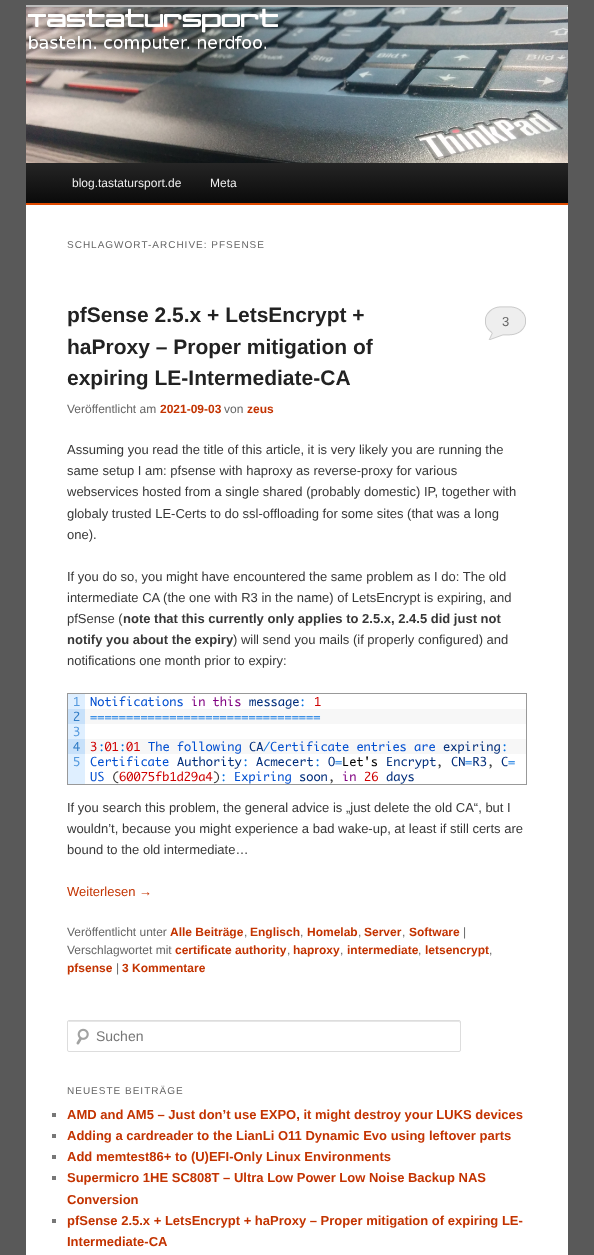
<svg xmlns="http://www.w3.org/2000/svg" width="594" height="1255">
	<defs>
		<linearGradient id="g1" gradientUnits="userSpaceOnUse" x1="297" y1="163" x2="297" y2="203"><stop offset="0" stop-color="#252525" /><stop offset="1" stop-color="#0A0A0A" /></linearGradient>
	</defs>
	<rect width="100%" height="100%" fill="#595959" />
	<rect x="26" y="205" width="542" height="1050" fill="#FFFFFF" />
	<rect x="26" y="5" width="542" height="2" fill="#BBBBBB" />
	<image x="26" y="7" width="542" height="156" href="assets/img1.png" />
	<rect x="26" y="163" width="542" height="40" fill="url(#g1)" />
	<rect x="26" y="203" width="542" height="2" fill="#E04A00" />
	<g font-family="Liberation Sans" font-size="12" fill="#EEEEEE">
		<text x="72" y="187">blog.tastatursport.de</text>
		<text x="210" y="187">Meta</text>
	</g>
	<text x="67" y="248" font-family="Liberation Sans" font-size="10" letter-spacing="1" fill="#666666">SCHLAGWORT-ARCHIVE: PFSENSE</text>
	<g font-family="Liberation Sans" font-size="21" font-weight="700" fill="#222222">
		<text x="67" y="322">pfSense 2.5.x + LetsEncrypt +</text>
		<text x="67" y="354">haProxy – Proper mitigation of</text>
		<text x="67" y="385">expiring LE-Intermediate-CA</text>
	</g>
	<rect x="485" y="306" width="41" height="34" fill="#EEEEEE" />
	<image x="484" y="304" width="43" height="36" href="assets/img2.png" />
	<text x="502" y="326" font-family="Liberation Sans" font-size="13" fill="#666666">3</text>
	<text x="67" y="413" font-family="Liberation Sans" font-size="12" fill="#666666">Veröffentlicht am</text>
	<text x="160" y="413" font-family="Liberation Sans" font-size="12" font-weight="700" fill="#C33300">2021-09-03</text>
	<text x="224" y="413" font-family="Liberation Sans" font-size="12" fill="#666666">von</text>
	<text x="247" y="413" font-family="Liberation Sans" font-size="12" font-weight="700" fill="#C33300">zeus</text>
	<g font-family="Liberation Sans" font-size="13" fill="#373737">
		<text x="67" y="454">Assuming you read the title of this article, it is very likely you are running the</text>
		<text x="67" y="475">same setup I am: pfsense with haproxy as reverse-proxy for various</text>
		<text x="67" y="496">webservices hosted from a single shared (probably domestic) IP, together with</text>
		<text x="67" y="518">globaly trusted LE-Certs to do ssl-offloading for some sites (that was a long</text>
		<text x="67" y="539">one).</text>
		<text x="67" y="581">If you do so, you might have encountered the same problem as I do: The old</text>
		<text x="67" y="602">intermediate CA (the one with R3 in the name) of LetsEncrypt is expiring, and</text>
		<text x="67" y="623">pfSense (</text>
	</g>
	<g font-family="Liberation Sans" font-size="13" font-weight="700" fill="#373737">
		<text x="123" y="623">note that this currently only applies to 2.5.x, 2.4.5 did just not</text>
		<text x="67" y="644">notify you about the expiry</text>
	</g>
	<g font-family="Liberation Sans" font-size="13" fill="#373737">
		<text x="233" y="644">) will send you mails (if properly configured) and</text>
		<text x="67" y="665">notifications one month prior to expiry:</text>
	</g>
	<rect x="67.5" y="693.5" width="459" height="91" fill="none" stroke="#999999" />
	<rect x="68" y="694" width="17" height="90" fill="#DFEFFF" />
	<text x="73" y="706" font-family="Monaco" font-size="12" fill="#5499DE">1</text>
	<rect x="68" y="709" width="17" height="15" fill="#C8E1FA" />
	<text x="73" y="721" font-family="Monaco" font-size="12" fill="#317CC5">2</text>
	<text x="73" y="736" font-family="Monaco" font-size="12" fill="#5499DE">3</text>
	<rect x="68" y="739" width="17" height="15" fill="#C8E1FA" />
	<text x="73" y="751" font-family="Monaco" font-size="12" fill="#317CC5">4</text>
	<text x="73" y="766" font-family="Monaco" font-size="12" fill="#5499DE">5</text>
	<text x="90" y="706" font-family="Monaco" font-size="12" fill="#004ED0">Notifications</text>
	<text x="191" y="706" font-family="Monaco" font-size="12" fill="#800080">in this</text>
	<text x="249" y="706" font-family="Monaco" font-size="12" fill="#002D7A">message</text>
	<text x="299" y="706" font-family="Monaco" font-size="12" fill="#006FE0">:</text>
	<text x="314" y="706" font-family="Monaco" font-size="12" fill="#CE0000">1</text>
	<rect x="85" y="709" width="441" height="15" fill="#F7F7F7" />
	<text x="90" y="721" font-family="Monaco" font-size="12" fill="#006FE0">================================</text>
	<rect x="85" y="739" width="441" height="15" fill="#F7F7F7" />
	<text x="90" y="751" font-family="Monaco" font-size="12" fill="#CE0000">3 01 01</text>
	<text x="148" y="751" font-family="Monaco" font-size="12" fill="#004ED0">The following</text>
	<text x="249" y="751" font-family="Monaco" font-size="12" fill="#002D7A">CA</text>
	<text x="263" y="751" font-family="Monaco" font-size="12" fill="#006FE0">/</text>
	<text x="270" y="751" font-family="Monaco" font-size="12" fill="#004ED0">Certificate entries are</text>
	<text x="443" y="751" font-family="Monaco" font-size="12" fill="#002D7A">expiring</text>
	<g font-family="Monaco" font-size="12" fill="#006FE0">
		<text x="98" y="751">:</text>
		<text x="119" y="751">:</text>
		<text x="501" y="751">:</text>
	</g>
	<text x="90" y="766" font-family="Monaco" font-size="12" fill="#004ED0">Certificate</text>
	<text x="177" y="766" font-family="Monaco" font-size="12" fill="#002D7A">Authority</text>
	<text x="242" y="766" font-family="Monaco" font-size="12" fill="#006FE0">:</text>
	<text x="256" y="766" font-family="Monaco" font-size="12" fill="#002D7A">Acmecert</text>
	<text x="314" y="766" font-family="Monaco" font-size="12" fill="#006FE0">:</text>
	<text x="328" y="766" font-family="Monaco" font-size="12" fill="#002D7A">O</text>
	<text x="335" y="766" font-family="Monaco" font-size="12" fill="#006FE0">=</text>
	<text x="342" y="766" font-family="Monaco" font-size="12" fill="#000000">Let's</text>
	<g font-family="Monaco" font-size="12" fill="#002D7A">
		<text x="386" y="766">Encrypt</text>
		<text x="451" y="766">CN R3</text>
		<text x="501" y="766">C</text>
	</g>
	<g font-family="Monaco" font-size="12" fill="#006FE0">
		<text x="465" y="766">=</text>
		<text x="508" y="766">=</text>
	</g>
	<g font-family="Monaco" font-size="12" fill="#373737">
		<text x="436" y="766">,</text>
		<text x="487" y="766">,</text>
	</g>
	<text x="90" y="781" font-family="Monaco" font-size="12" fill="#004ED0">US</text>
	<text x="112" y="781" font-family="Monaco" font-size="12" fill="#373737">(</text>
	<text x="119" y="781" font-family="Monaco" font-size="12" fill="#CE0000">60075fb1d29a4</text>
	<text x="213" y="781" font-family="Monaco" font-size="12" fill="#373737">)</text>
	<text x="220" y="781" font-family="Monaco" font-size="12" fill="#006FE0">:</text>
	<text x="234" y="781" font-family="Monaco" font-size="12" fill="#004ED0">Expiring</text>
	<text x="299" y="781" font-family="Monaco" font-size="12" fill="#002D7A">soon</text>
	<text x="328" y="781" font-family="Monaco" font-size="12" fill="#373737">,</text>
	<text x="342" y="781" font-family="Monaco" font-size="12" fill="#800080">in</text>
	<text x="364" y="781" font-family="Monaco" font-size="12" fill="#CE0000">26</text>
	<text x="386" y="781" font-family="Monaco" font-size="12" fill="#002D7A">days</text>
	<g font-family="Liberation Sans" font-size="13" fill="#373737">
		<text x="67" y="812">If you search this problem, the general advice is „just delete the old CA“, but I</text>
		<text x="67" y="833">wouldn’t, because you might experience a bad wake-up, at least if still certs are</text>
		<text x="67" y="854">bound to the old intermediate…</text>
	</g>
	<text x="67" y="896" font-family="Liberation Sans" font-size="13" fill="#C33300">Weiterlesen →</text>
	<text x="67" y="936" font-family="Liberation Sans" font-size="12" fill="#666666">Veröffentlicht unter</text>
	<text x="170" y="936" font-family="Liberation Sans" font-size="12" font-weight="700" fill="#C33300">Alle Beiträge</text>
	<text x="244" y="936" font-family="Liberation Sans" font-size="12" fill="#666666">,</text>
	<text x="250" y="936" font-family="Liberation Sans" font-size="12" font-weight="700" fill="#C33300">Englisch</text>
	<text x="300" y="936" font-family="Liberation Sans" font-size="12" fill="#666666">,</text>
	<text x="307" y="936" font-family="Liberation Sans" font-size="12" font-weight="700" fill="#C33300">Homelab</text>
	<text x="358" y="936" font-family="Liberation Sans" font-size="12" fill="#666666">,</text>
	<text x="364" y="936" font-family="Liberation Sans" font-size="12" font-weight="700" fill="#C33300">Server</text>
	<text x="402" y="936" font-family="Liberation Sans" font-size="12" fill="#666666">,</text>
	<text x="409" y="936" font-family="Liberation Sans" font-size="12" font-weight="700" fill="#C33300">Software</text>
	<g font-family="Liberation Sans" font-size="12" fill="#666666">
		<text x="463" y="936">|</text>
		<text x="67" y="954">Verschlagwortet mit</text>
	</g>
	<text x="175" y="954" font-family="Liberation Sans" font-size="12" font-weight="700" fill="#C33300">certificate authority</text>
	<text x="287" y="954" font-family="Liberation Sans" font-size="12" fill="#666666">,</text>
	<text x="293" y="954" font-family="Liberation Sans" font-size="12" font-weight="700" fill="#C33300">haproxy</text>
	<text x="340" y="954" font-family="Liberation Sans" font-size="12" fill="#666666">,</text>
	<text x="347" y="954" font-family="Liberation Sans" font-size="12" font-weight="700" fill="#C33300">intermediate</text>
	<text x="418" y="954" font-family="Liberation Sans" font-size="12" fill="#666666">,</text>
	<text x="425" y="954" font-family="Liberation Sans" font-size="12" font-weight="700" fill="#C33300">letsencrypt</text>
	<text x="489" y="954" font-family="Liberation Sans" font-size="12" fill="#666666">,</text>
	<text x="67" y="972" font-family="Liberation Sans" font-size="12" font-weight="700" fill="#C33300">pfsense</text>
	<text x="116" y="972" font-family="Liberation Sans" font-size="12" fill="#666666">|</text>
	<text x="122" y="972" font-family="Liberation Sans" font-size="12" font-weight="700" fill="#C33300">3 Kommentare</text>
	<image x="76" y="1028" width="13" height="17" href="assets/img3.png" />
	<path d="M69 1021L68 1022H459L460 1023C460 1022 460 1021 459 1021Z" fill="#E6E6E6" />
	<rect x="67.5" y="1020.5" width="393" height="31" rx="1.5" fill="none" stroke="#DDDDDD" />
	<text x="96" y="1041" font-family="Liberation Sans" font-size="14" fill="#757575">Suchen</text>
	<text x="67" y="1094" font-family="Liberation Sans" font-size="10" letter-spacing="1" fill="#666666">NEUESTE BEITRÄGE</text>
	<rect x="52" y="1113" width="4" height="4" fill="#777777" />
	<text x="67" y="1119" font-family="Liberation Sans" font-size="13" font-weight="700" fill="#C33300">AMD and AM5 – Just don’t use EXPO, it might destroy your LUKS devices</text>
	<rect x="52" y="1134" width="4" height="4" fill="#777777" />
	<text x="67" y="1140" font-family="Liberation Sans" font-size="13" font-weight="700" fill="#C33300">Adding a cardreader to the LianLi O11 Dynamic Evo using leftover parts</text>
	<rect x="52" y="1155" width="4" height="4" fill="#777777" />
	<text x="67" y="1161" font-family="Liberation Sans" font-size="13" font-weight="700" fill="#C33300">Add memtest86+ to (U)EFI-Only Linux Environments</text>
	<rect x="52" y="1176" width="4" height="4" fill="#777777" />
	<g font-family="Liberation Sans" font-size="13" font-weight="700" fill="#C33300">
		<text x="67" y="1182">Supermicro 1HE SC808T – Ultra Low Power Low Noise Backup NAS</text>
		<text x="67" y="1204">Conversion</text>
	</g>
	<rect x="52" y="1219" width="4" height="4" fill="#777777" />
	<g font-family="Liberation Sans" font-size="13" font-weight="700" fill="#C33300">
		<text x="67" y="1225">pfSense 2.5.x + LetsEncrypt + haProxy – Proper mitigation of expiring LE-</text>
		<text x="67" y="1246">Intermediate-CA</text>
	</g>
</svg>
